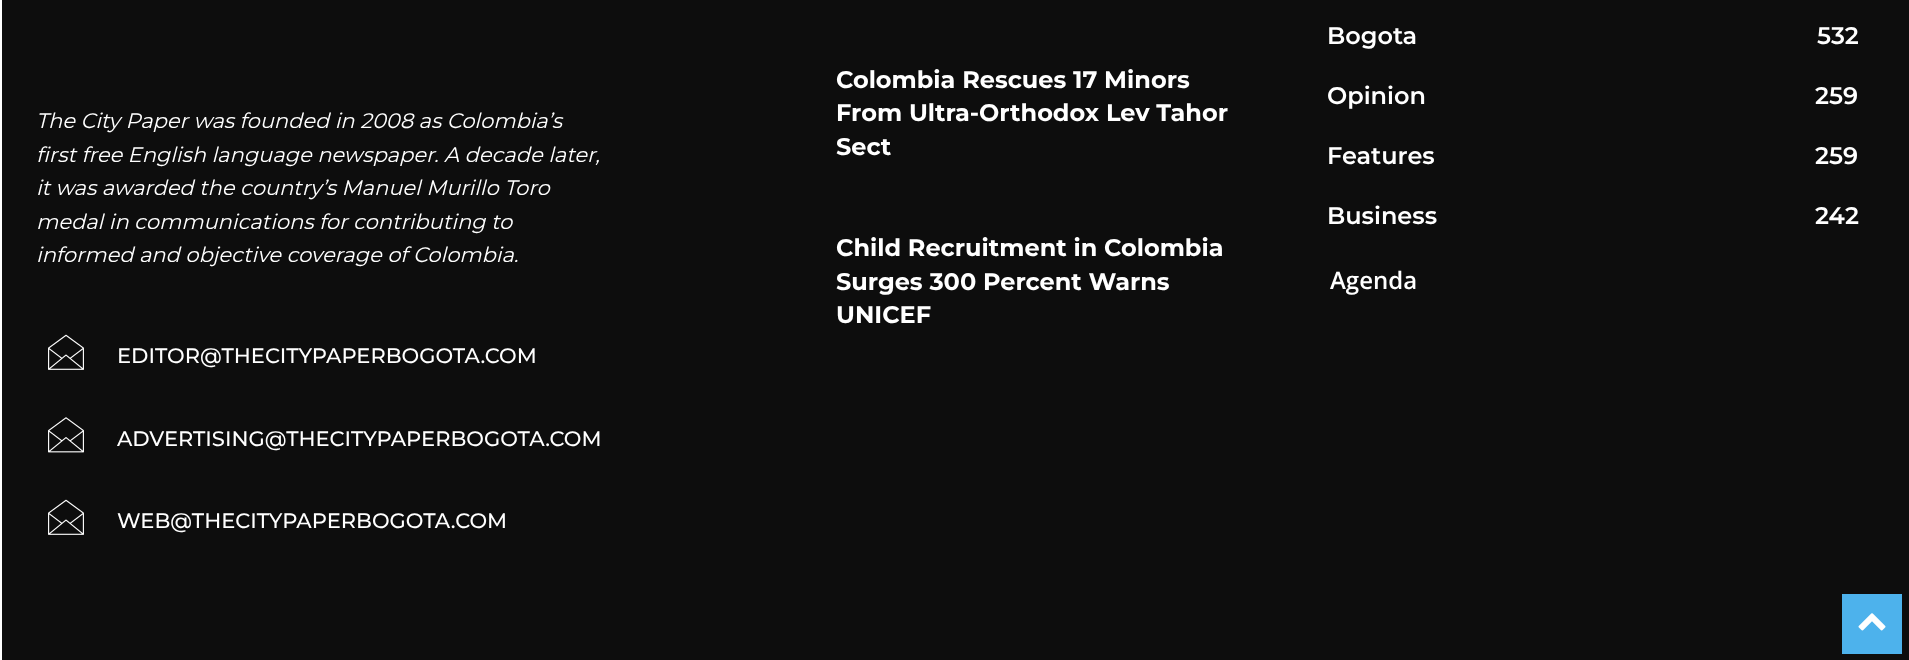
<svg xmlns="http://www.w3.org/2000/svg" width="1909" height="660">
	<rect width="100%" height="100%" fill="#FFFFFF" />
	<rect x="2" y="0" width="1907" height="660" fill="#0D0D0D" />
	<g font-family="Montserrat" font-size="21" font-style="italic" fill="#FFFFFF">
		<text x="36" y="128">The City Paper was founded in 2008 as Colombia’s</text>
		<text x="36" y="162">first free English language newspaper. A decade later,</text>
		<text x="36" y="195">it was awarded the country’s Manuel Murillo Toro</text>
		<text x="36" y="229">medal in communications for contributing to</text>
		<text x="36" y="262">informed and objective coverage of Colombia.</text>
	</g>
	<image x="48" y="334" width="36" height="36" href="assets/img1.png" />
	<text x="117" y="363" font-family="Montserrat" font-size="21" font-weight="500" fill="#FFFFFF">EDITOR@THECITYPAPERBOGOTA.COM</text>
	<image x="48" y="417" width="36" height="36" href="assets/img2.png" />
	<text x="117" y="446" font-family="Montserrat" font-size="21" font-weight="500" fill="#FFFFFF">ADVERTISING@THECITYPAPERBOGOTA.COM</text>
	<image x="48" y="499" width="36" height="36" href="assets/img1.png" />
	<text x="117" y="528" font-family="Montserrat" font-size="21" font-weight="500" fill="#FFFFFF">WEB@THECITYPAPERBOGOTA.COM</text>
	<g font-family="Montserrat" font-size="24" font-weight="700" fill="#FFFFFF">
		<text x="836" y="88">Colombia Rescues 17 Minors</text>
		<text x="836" y="121">From Ultra-Orthodox Lev Tahor</text>
		<text x="836" y="155">Sect</text>
		<text x="836" y="256">Child Recruitment in Colombia</text>
		<text x="836" y="290">Surges 300 Percent Warns</text>
		<text x="836" y="323">UNICEF</text>
	</g>
	<g font-family="Montserrat" font-size="24" font-weight="600" fill="#FFFFFF">
		<text x="1327" y="44">Bogota</text>
		<text x="1817" y="44">532</text>
		<text x="1327" y="104">Opinion</text>
		<text x="1815" y="104">259</text>
		<text x="1327" y="164">Features</text>
		<text x="1815" y="164">259</text>
		<text x="1327" y="224">Business</text>
		<text x="1815" y="224">242</text>
	</g>
	<text x="1330" y="289" font-family="Open Sans" font-size="24" font-weight="600" fill="#FFFFFF">Agenda</text>
	<rect x="1842" y="594" width="60" height="60" fill="#4DB2EC" />
	<image x="1858" y="613" width="28" height="18" href="assets/img3.png" />
</svg>
